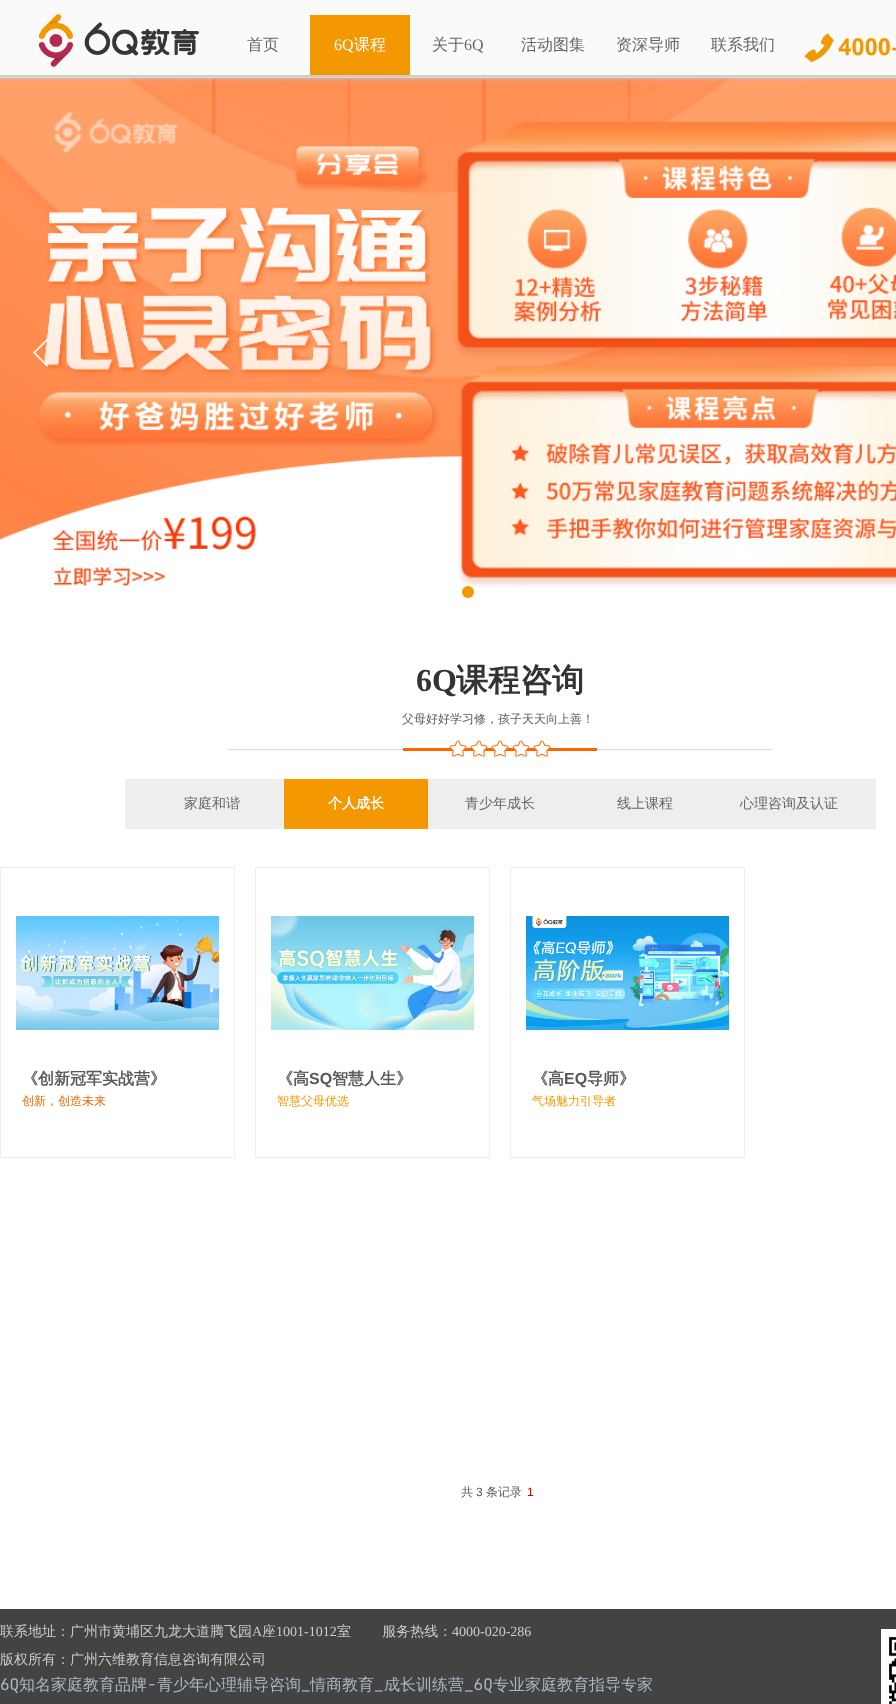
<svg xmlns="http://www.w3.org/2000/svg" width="896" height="1704">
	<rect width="100%" height="100%" fill="#FFFFFF" />
	<image x="0" y="78" width="896" height="510" href="assets/img4.png" />
	<image x="0" y="0" width="896" height="82" href="assets/img1.png" />
	<image x="38" y="14" width="161" height="53" href="assets/img2.png" />
	<text x="247" y="50" font-family="WenQuanYi Zen Hei" font-size="16" font-weight="500" fill="#666666">首页</text>
	<rect x="310" y="15" width="100" height="60" fill="#F39800" />
	<text x="334" y="50" font-family="Liberation Serif" font-size="16" fill="#FFFFFF">6Q</text>
	<text x="354" y="50" font-family="WenQuanYi Zen Hei" font-size="16" font-weight="500" fill="#FFFFFF">课程</text>
	<text x="432" y="50" font-family="WenQuanYi Zen Hei" font-size="16" font-weight="500" fill="#666666">关于</text>
	<text x="464" y="50" font-family="Liberation Serif" font-size="16" fill="#666666">6Q</text>
	<g font-family="WenQuanYi Zen Hei" font-size="16" font-weight="500" fill="#666666">
		<text x="521" y="50">活动图集</text>
		<text x="616" y="50">资深导师</text>
		<text x="711" y="50">联系我们</text>
	</g>
	<image x="804" y="33" width="92" height="30" href="assets/img3.png" />
	<image x="32" y="339" width="17" height="28" href="assets/img5.png" />
	<circle cx="468" cy="592" r="6" fill="#F39800" />
	<circle cx="496" cy="592" r="6" fill="#FFFFFF" fill-opacity="0.4" />
	<circle cx="524" cy="592" r="6" fill="#FFFFFF" fill-opacity="0.4" />
	<text x="416" y="691" font-family="Liberation Serif" font-size="32" font-weight="700" fill="#333333">6Q</text>
	<text x="456" y="691" font-family="WenQuanYi Zen Hei" font-size="32" font-weight="700" fill="#333333">课程咨询</text>
	<text x="402" y="723" font-family="WenQuanYi Zen Hei" font-size="12" font-weight="500" fill="#5A5A5A">父母好好学习修，孩子天天向上善！</text>
	<rect x="227" y="749" width="546" height="1" fill="#D9D9D9" />
	<rect x="403" y="748" width="194" height="3" fill="#FF6600" />
	<image x="449" y="740" width="102" height="17" href="assets/img6.png" />
	<rect x="125" y="779" width="751" height="50" fill="#EEEEEE" />
	<text x="184" y="808" font-family="WenQuanYi Zen Hei" font-size="14" font-weight="500" fill="#666666">家庭和谐</text>
	<rect x="284" y="779" width="144" height="50" fill="#F39800" />
	<text x="328" y="808" font-family="WenQuanYi Zen Hei" font-size="14" font-weight="700" fill="#FFFFFF">个人成长</text>
	<g font-family="WenQuanYi Zen Hei" font-size="14" font-weight="500" fill="#666666">
		<text x="465" y="808">青少年成长</text>
		<text x="617" y="808">线上课程</text>
		<text x="740" y="808">心理咨询及认证</text>
	</g>
	<rect x="0.5" y="867.5" width="234" height="290" fill="none" stroke="#EEEEEE" />
	<image x="16" y="916" width="203" height="114" href="assets/img7.png" />
	<text x="22" y="1084" font-family="WenQuanYi Zen Hei" font-size="16" font-weight="700" fill="#5A5A5A">《创新冠军实战营》</text>
	<text x="22" y="1105" font-family="WenQuanYi Zen Hei" font-size="12" font-weight="500" fill="#E36C09">创新，创造未来</text>
	<rect x="255.5" y="867.5" width="234" height="290" fill="none" stroke="#EEEEEE" />
	<image x="271" y="916" width="203" height="114" href="assets/img8.png" />
	<text x="277" y="1084" font-family="WenQuanYi Zen Hei" font-size="16" font-weight="700" fill="#5A5A5A">《高</text>
	<text x="309" y="1084" font-family="Liberation Sans" font-size="16" font-weight="700" fill="#5A5A5A">SQ</text>
	<text x="332" y="1084" font-family="WenQuanYi Zen Hei" font-size="16" font-weight="700" fill="#5A5A5A">智慧人生》</text>
	<text x="277" y="1105" font-family="WenQuanYi Zen Hei" font-size="12" font-weight="500" fill="#F39800">智慧父母优选</text>
	<rect x="510.5" y="867.5" width="234" height="290" fill="none" stroke="#EEEEEE" />
	<image x="526" y="916" width="203" height="114" href="assets/img9.png" />
	<text x="532" y="1084" font-family="WenQuanYi Zen Hei" font-size="16" font-weight="700" fill="#5A5A5A">《高</text>
	<text x="564" y="1084" font-family="Liberation Sans" font-size="16" font-weight="700" fill="#5A5A5A">EQ</text>
	<text x="587" y="1084" font-family="WenQuanYi Zen Hei" font-size="16" font-weight="700" fill="#5A5A5A">导师》</text>
	<text x="532" y="1105" font-family="WenQuanYi Zen Hei" font-size="12" font-weight="500" fill="#F39800">气场魅力引导者</text>
	<text x="461" y="1496" font-family="WenQuanYi Zen Hei" font-size="12" font-weight="500" fill="#5A5A5A">共</text>
	<text x="476" y="1496" font-family="Liberation Sans" font-size="12" fill="#5A5A5A">3</text>
	<text x="486" y="1496" font-family="WenQuanYi Zen Hei" font-size="12" font-weight="500" fill="#5A5A5A">条记录</text>
	<text x="527" y="1496" font-family="Liberation Sans" font-size="12" fill="#DD0000">1</text>
	<rect x="0" y="1609" width="896" height="95" fill="#434343" />
	<text x="0" y="1636" font-family="WenQuanYi Zen Hei" font-size="14" font-weight="500" fill="#CCCCCC">联系地址：广州市黄埔区九龙大道腾飞园</text>
	<text x="252" y="1636" font-family="Liberation Serif" font-size="14" fill="#CCCCCC">A</text>
	<text x="262" y="1636" font-family="WenQuanYi Zen Hei" font-size="14" font-weight="500" fill="#CCCCCC">座</text>
	<text x="276" y="1636" font-family="Liberation Serif" font-size="14" fill="#CCCCCC">1001-1012</text>
	<text x="337" y="1636" word-spacing="-1" font-family="WenQuanYi Zen Hei" font-size="14" font-weight="500" fill="#CCCCCC">室　　 服务热线：</text>
	<text x="452" y="1636" font-family="Liberation Serif" font-size="14" fill="#CCCCCC">4000-020-286</text>
	<text x="0" y="1664" font-family="WenQuanYi Zen Hei" font-size="14" font-weight="500" fill="#CCCCCC">版权所有：广州六维教育信息咨询有限公司</text>
	<text x="0" y="1690" font-family="JetBrains Mono" font-size="16" fill="#A9B7C6">6Q</text>
	<text x="19" y="1690" font-family="WenQuanYi Zen Hei" font-size="16" font-weight="500" fill="#A9B7C6">知名家庭教育品牌</text>
	<text x="147" y="1690" font-family="JetBrains Mono" font-size="16" fill="#A9B7C6">-</text>
	<g font-family="WenQuanYi Zen Hei" font-size="16" font-weight="500" fill="#A9B7C6">
		<text x="157" y="1690">青少年心理辅导咨询</text>
		<text x="310" y="1690">情商教育</text>
		<text x="384" y="1690">成长训练营</text>
	</g>
	<text x="464" y="1690" font-family="JetBrains Mono" font-size="16" fill="#A9B7C6">_6Q</text>
	<text x="493" y="1690" font-family="WenQuanYi Zen Hei" font-size="16" font-weight="500" fill="#A9B7C6">专业家庭教育指导专家</text>
	<g font-family="JetBrains Mono" font-size="16" fill="#A9B7C6">
		<text x="301" y="1690">_</text>
		<text x="374" y="1690">_</text>
	</g>
	<image x="881" y="1629" width="15" height="75" href="assets/img10.png" />
</svg>
